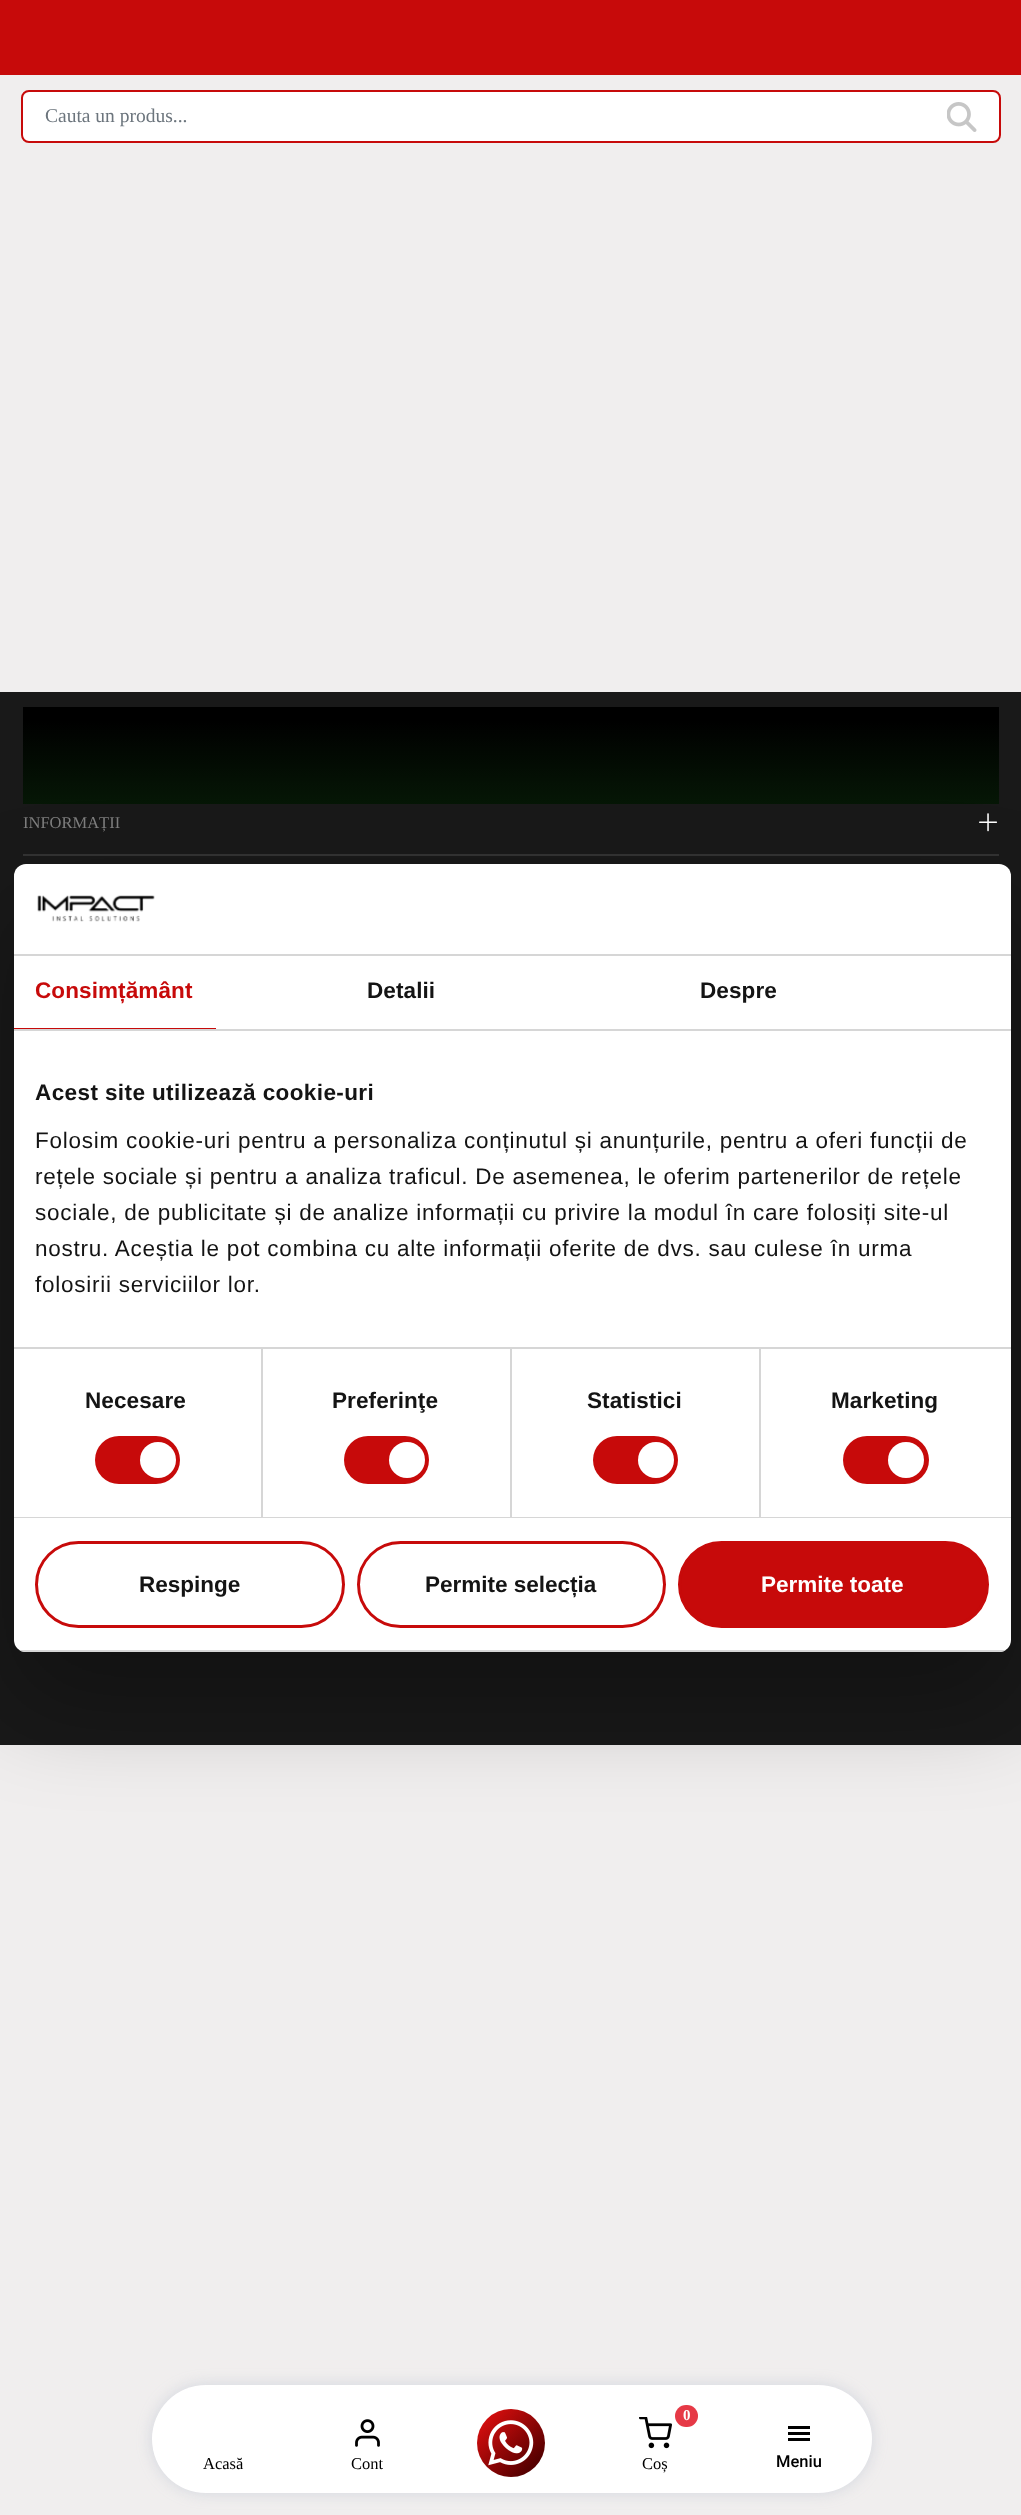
<svg xmlns="http://www.w3.org/2000/svg" width="1021" height="2515">
	<defs>
		<linearGradient id="g1" gradientUnits="userSpaceOnUse" x1="528" y1="2358" x2="696" y2="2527"><stop offset="0" stop-color="#ED1010" /><stop offset="0.33" stop-color="#570000" /><stop offset="0.66" stop-color="#2C0000" /><stop offset="1" stop-color="#000000" /></linearGradient>
		<clipPath id="clip1"><rect x="14" y="864" width="997" height="788" rx="12" /></clipPath>
	</defs>
	<rect width="100%" height="100%" fill="#F0EEEE" />
	<rect x="0" y="0" width="1021" height="75" fill="#C70A0A" />
	<rect x="22" y="91" width="978" height="51" rx="7" fill="#FFFFFF" stroke="#C70A0A" stroke-width="2" />
	<text x="45" y="122" font-family="Liberation Serif" font-size="19.5" fill="#6C757D">Cauta un produs...</text>
	<image x="947" y="102" width="30" height="30" href="assets/img1.png" />
	<rect x="0" y="692" width="1021" height="1053" fill="#191919" />
	<image x="23" y="707" width="976" height="97" href="assets/img2.png" />
	<rect x="23" y="854" width="976" height="2" fill="#333333" />
	<text x="23" y="828" font-family="Liberation Serif" font-size="16.5" fill="#7E7E7E">INFORMAȚII</text>
	<image x="979" y="813" width="19" height="19" href="assets/img3.png" />
	<rect x="152" y="2385" width="720" height="108" rx="54" fill="#8E9EB8" fill-opacity="0.3" filter="blur(7.5px)" />
	<rect x="152" y="2385" width="720" height="108" rx="54" fill="#FFFFFF" />
	<text x="203" y="2469" font-family="Liberation Serif" font-size="16.5" fill="#000000">Acasă</text>
	<image x="355" y="2419" width="25" height="28" href="assets/img4.png" />
	<text x="351" y="2469" font-family="Liberation Serif" font-size="16.5" fill="#000000">Cont</text>
	<circle cx="511" cy="2443" r="34" fill="url(#g1)" />
	<image x="488" y="2420" width="46" height="46" href="assets/img5.png" />
	<rect x="675" y="2405" width="23" height="22" rx="11" fill="#E63946" />
	<text x="683" y="2420" font-family="Liberation Serif" font-size="15" font-weight="700" fill="#FFFFFF">0</text>
	<image x="639" y="2417" width="33" height="32" href="assets/img6.png" />
	<text x="642" y="2469" font-family="Liberation Serif" font-size="16.5" fill="#000000">Coș</text>
	<rect x="788" y="2426" width="22" height="3" fill="#000000" />
	<rect x="788" y="2432" width="22" height="3" fill="#000000" />
	<rect x="788" y="2438" width="22" height="3" fill="#000000" />
	<text x="776" y="2467" font-family="Roboto" font-size="16.5" font-weight="500" fill="#000000">Meniu</text>
	<rect x="14" y="912" width="997" height="788" rx="12" fill="#000000" fill-opacity="0.3" filter="blur(51px)" />
	<rect x="14" y="864" width="997" height="788" rx="12" fill="#FFFFFF" />
	<rect x="14" y="954" width="997" height="2" fill="#D6D6D6" />
	<image x="37" y="895" width="118" height="27" href="assets/img7.png" />
	<rect x="14" y="1029" width="997" height="2" fill="#D6D6D6" />
	<rect x="14" y="1028" width="202" height="1" fill="#C70A0A" />
	<text x="35" y="998" font-family="Liberation Sans" font-size="22.5" font-weight="700" letter-spacing="0.1" fill="#C70A0A">Consimțământ</text>
	<g font-family="Liberation Sans" font-size="22.5" font-weight="700" letter-spacing="0.1" fill="#141414">
		<text x="367" y="998">Detalii</text>
		<text x="700" y="998">Despre</text>
	</g>
	<rect x="14" y="1347" width="997" height="2" fill="#D6D6D6" />
	<text x="35" y="1100" font-family="Liberation Sans" font-size="22.5" font-weight="700" letter-spacing="0.4" fill="#141414">Acest site utilizează cookie-uri</text>
	<g font-family="Liberation Sans" font-size="22.5" letter-spacing="0.75" fill="#141414">
		<text x="35" y="1148">Folosim cookie-uri pentru a personaliza conținutul și anunțurile, pentru a oferi funcții de</text>
		<text x="35" y="1184">rețele sociale și pentru a analiza traficul. De asemenea, le oferim partenerilor de rețele</text>
		<text x="35" y="1220">sociale, de publicitate și de analize informații cu privire la modul în care folosiți site-ul</text>
		<text x="35" y="1256">nostru. Aceștia le pot combina cu alte informații oferite de dvs. sau culese în urma</text>
		<text x="35" y="1292">folosirii serviciilor lor.</text>
	</g>
	<rect x="14" y="1517" width="997" height="1" fill="#D6D6D6" />
	<rect x="261" y="1349" width="2" height="168" fill="#D6D6D6" />
	<text x="85" y="1408" font-family="Liberation Sans" font-size="22.5" font-weight="700" letter-spacing="0.1" fill="#141414">Necesare</text>
	<rect x="95" y="1436" width="85" height="48" rx="24" fill="#C70A0A" />
	<circle cx="158" cy="1460" r="18" fill="#FFFFFF" />
	<rect x="510" y="1349" width="2" height="168" fill="#D6D6D6" />
	<text x="332" y="1408" font-family="Liberation Sans" font-size="22.5" font-weight="700" letter-spacing="0.1" fill="#141414">Preferinţe</text>
	<rect x="344" y="1436" width="85" height="48" rx="24" fill="#C70A0A" />
	<circle cx="407" cy="1460" r="18" fill="#FFFFFF" />
	<rect x="759" y="1349" width="2" height="168" fill="#D6D6D6" />
	<text x="587" y="1408" font-family="Liberation Sans" font-size="22.5" font-weight="700" letter-spacing="0.1" fill="#141414">Statistici</text>
	<rect x="593" y="1436" width="85" height="48" rx="24" fill="#C70A0A" />
	<circle cx="656" cy="1460" r="18" fill="#FFFFFF" />
	<text x="831" y="1408" font-family="Liberation Sans" font-size="22.5" font-weight="700" letter-spacing="0.1" fill="#141414">Marketing</text>
	<rect x="843" y="1436" width="86" height="48" rx="24" fill="#C70A0A" />
	<circle cx="906" cy="1460" r="18" fill="#FFFFFF" />
	<g clip-path="url(#clip1)">
		<rect x="14" y="1650" width="997" height="2" fill="#D6D6D6" />
	</g>
	<rect x="36.5" y="1542.5" width="307" height="84" rx="42" fill="none" stroke="#C70A0A" stroke-width="3" />
	<text x="139" y="1592" font-family="Liberation Sans" font-size="22.5" font-weight="700" fill="#141414">Respinge</text>
	<rect x="358.5" y="1542.5" width="306" height="84" rx="42" fill="none" stroke="#C70A0A" stroke-width="3" />
	<text x="425" y="1592" font-family="Liberation Sans" font-size="22.5" font-weight="700" fill="#141414">Permite selecția</text>
	<rect x="679.5" y="1542.5" width="308" height="84" rx="42" fill="#C70A0A" stroke="#C70A0A" stroke-width="3" />
	<text x="761" y="1592" font-family="Liberation Sans" font-size="22.5" font-weight="700" fill="#FFFFFF">Permite toate</text>
</svg>
